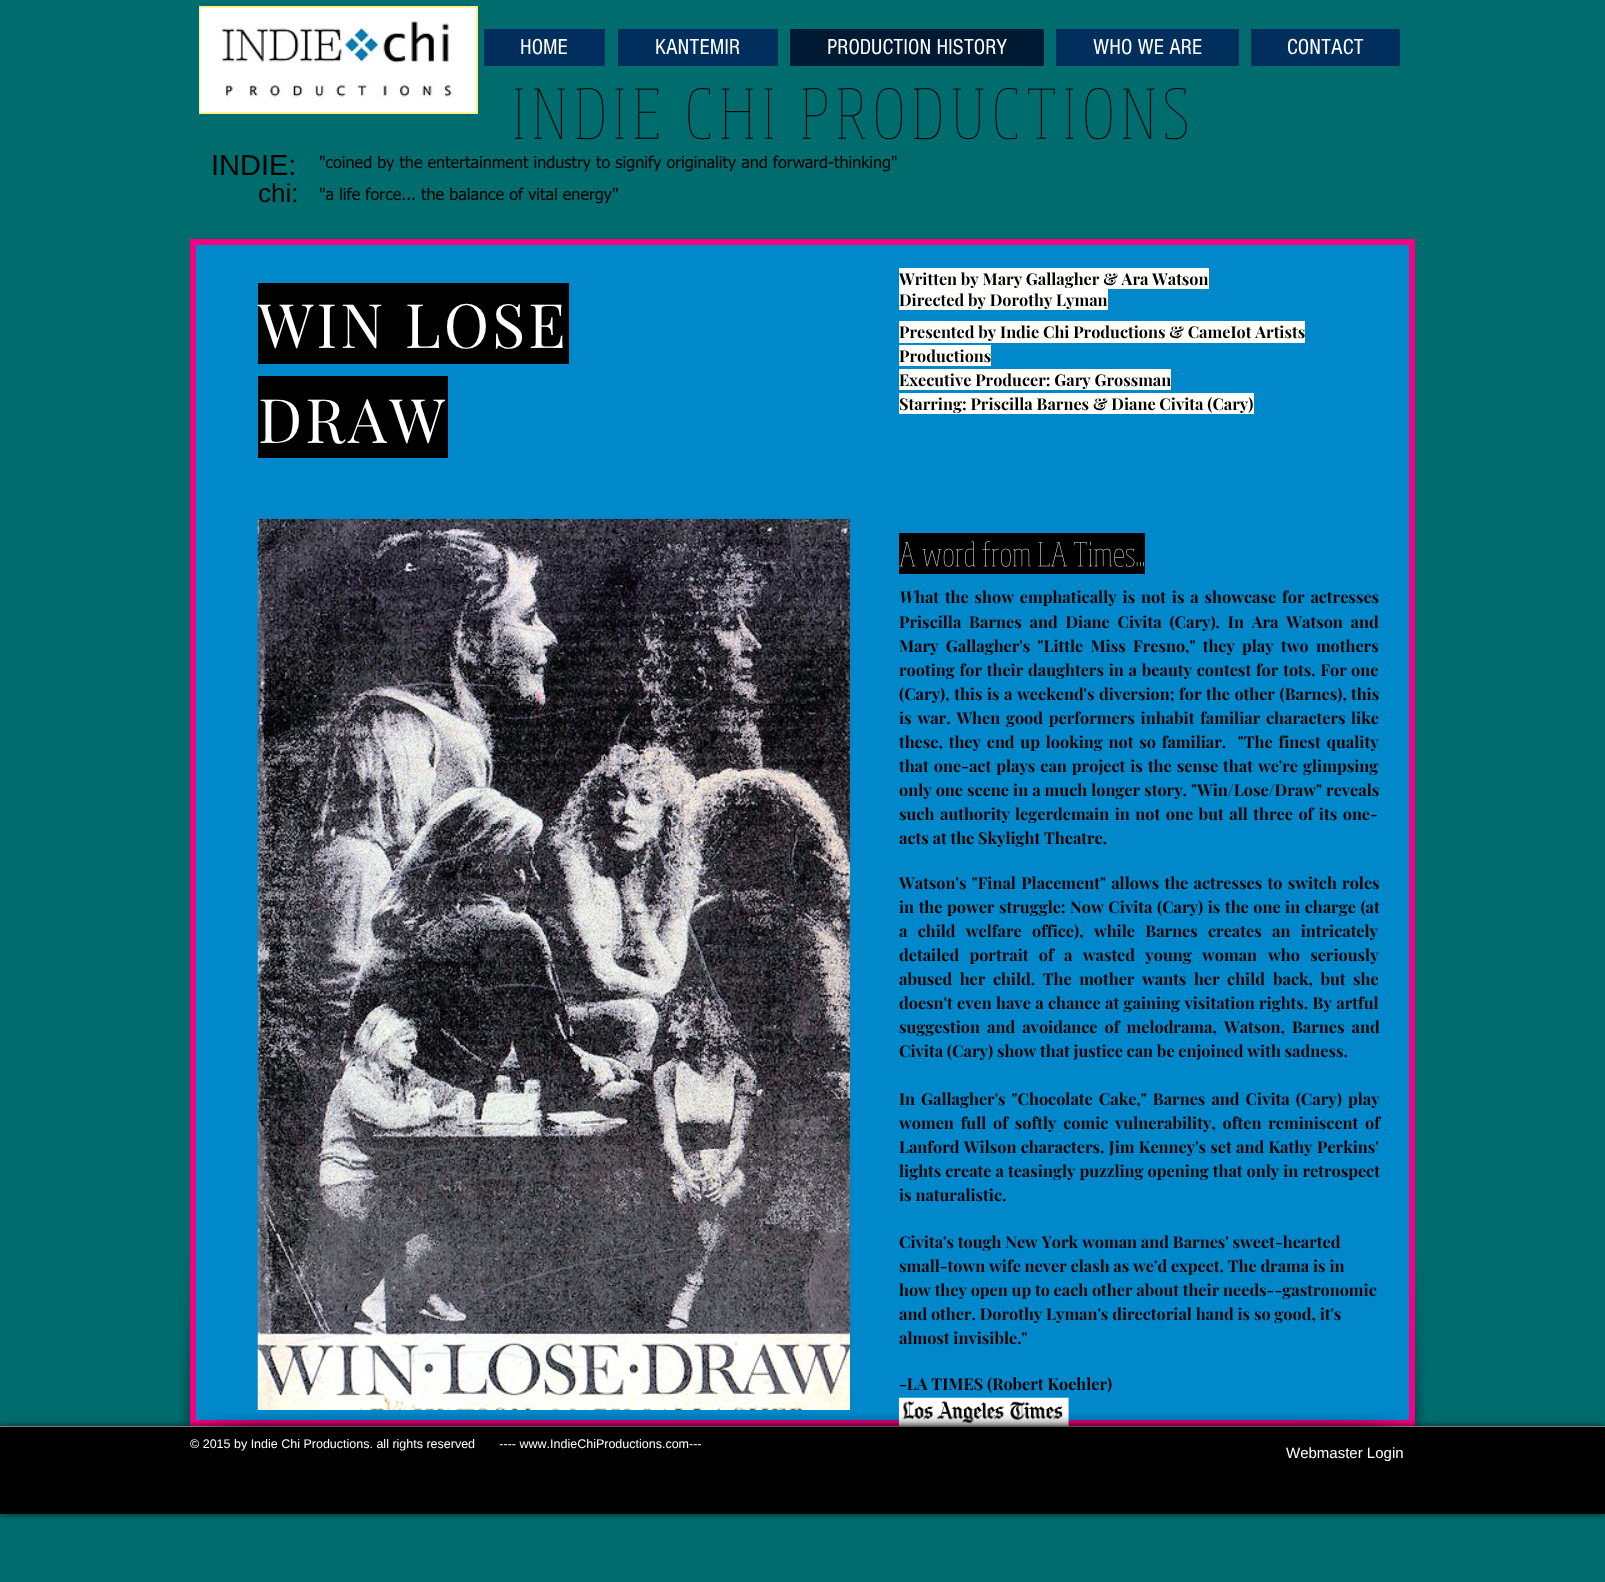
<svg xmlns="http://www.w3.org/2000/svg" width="1605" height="1582">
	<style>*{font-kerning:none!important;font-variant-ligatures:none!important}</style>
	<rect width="100%" height="100%" fill="#006C6D" />
	<rect x="199" y="6" width="279" height="108" fill="#F8F281" />
	<image x="200" y="7" width="277" height="106" href="assets/img1.png" />
	<rect x="484" y="29" width="121" height="37" fill="#002E5D" />
	<text x="520" y="54" font-family="'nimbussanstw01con'" font-size="22.5" fill="#FFFFFF">HOME</text>
	<rect x="618" y="29" width="160" height="37" fill="#002E5D" />
	<text x="655" y="54" font-family="'nimbussanstw01con'" font-size="22.5" fill="#FFFFFF">KANTEMIR</text>
	<rect x="790" y="29" width="254" height="37" fill="#001A33" />
	<text x="827" y="54" font-family="'nimbussanstw01con'" font-size="22.5" fill="#FFFFFF">PRODUCTION HISTORY</text>
	<rect x="1056" y="29" width="183" height="37" fill="#002E5D" />
	<text x="1093" y="54" font-family="'nimbussanstw01con'" font-size="22.5" fill="#FFFFFF">WHO WE ARE</text>
	<rect x="1251" y="29" width="149" height="37" fill="#002E5D" />
	<text x="1287" y="54" font-family="'nimbussanstw01con'" font-size="22.5" fill="#FFFFFF">CONTACT</text>
	<image x="515" y="88" width="672" height="52" href="assets/img2.png" />
	<text x="211" y="175" font-family="Liberation Sans" font-size="29" fill="#000000">INDIE:</text>
	<text x="319" y="168" font-family="tahoma" font-size="16.25" fill="#000000">"coined by the entertainment industry to signify originality and forward-thinking"</text>
	<text x="258" y="202" font-family="Liberation Sans" font-size="26" fill="#000000">chi:</text>
	<text x="319" y="200" font-family="tahoma" font-size="16.25" fill="#000000">"a life force... the balance of vital energy"</text>
	<image x="179" y="1257" width="11" height="169" href="assets/img3.png" />
	<rect x="193" y="242" width="1219" height="1181" fill="#0088CB" stroke="#F40082" stroke-width="6" />
	<image x="1415" y="1257" width="11" height="169" href="assets/img4.png" />
	<rect x="899" y="268" width="310" height="21" fill="#FFFFFE" />
	<text x="899" y="285" font-family="Playfair Display" font-size="16.25" font-weight="700" fill="#000000">Written by Mary Gallagher &amp; Ara</text>
	<text x="1152" y="285" font-family="Playfair Display" font-size="16.25" font-weight="700" fill="#000000">Watson</text>
	<rect x="899" y="289" width="209" height="21" fill="#FFFFFE" />
	<text x="899" y="306" font-family="Playfair Display" font-size="16.25" font-weight="700" fill="#000000">Directed by Dorothy Lyman</text>
	<rect x="258" y="283" width="311" height="81" fill="#000000" />
	<text x="258" y="348" font-family="Playfair Display" font-size="61.25" letter-spacing="3" fill="#FFFFFF">WIN LOSE</text>
	<rect x="258" y="376" width="190" height="82" fill="#000000" />
	<text x="258" y="443" font-family="Playfair Display" font-size="61.25" letter-spacing="3" fill="#FFFFFF">DRAW</text>
	<rect x="899" y="321" width="406" height="22" fill="#FFFFFE" />
	<text x="899" y="338" font-family="Playfair Display" font-size="16.25" font-weight="700" fill="#000000">Presented by Indie Chi Productions &amp; CameIot Artists</text>
	<rect x="899" y="345" width="92" height="21" fill="#FFFFFE" />
	<text x="899" y="362" font-family="Playfair Display" font-size="16.25" font-weight="700" fill="#000000">Productions</text>
	<rect x="899" y="369" width="272" height="21" fill="#FFFFFE" />
	<text x="899" y="386" font-family="Playfair Display" font-size="16.25" font-weight="700" fill="#000000">Executive Producer: Gary Grossman</text>
	<rect x="899" y="393" width="355" height="21" fill="#FFFFFE" />
	<text x="899" y="410" font-family="Playfair Display" font-size="16.25" font-weight="700" fill="#000000">Starring: Priscilla Barnes &amp; Diane Civita (Cary)</text>
	<image x="257" y="518" width="593" height="892" href="assets/img5.png" />
	<rect x="899" y="533" width="246" height="41" fill="#000000" />
	<image x="899" y="541" width="245" height="26" href="assets/img6.png" />
	<text x="899" y="603" font-family="Playfair Display" font-size="16.25" font-weight="700" font-style="italic" fill="#000000">W</text>
	<g font-family="Playfair Display" font-size="16.25" font-weight="700" fill="#000000">
		<text x="915" y="603" word-spacing="2.1">hat the show emphatically is not is a showcase for actresses</text>
		<text x="899" y="628" word-spacing="4">Priscilla Barnes and Diane Civita (Cary). In Ara Watson and</text>
		<text x="899" y="652" word-spacing="3.5">Mary Gallagher's "Little Miss Fresno," they</text>
		<text x="1242" y="652" word-spacing="3.5">play two mothers</text>
		<text x="899" y="676" word-spacing="1">rooting for their daughters in a beauty contest for tots. For</text>
		<text x="1351" y="676" word-spacing="1">one</text>
		<text x="899" y="700" word-spacing="0.75">(Cary), this is a weekend's diversion; for the other (Barnes),</text>
		<text x="1351" y="700" word-spacing="0.75">this</text>
		<text x="899" y="724" word-spacing="2">is war. When good performers inhabit familiar characters</text>
		<text x="1351" y="724" word-spacing="2">like</text>
		<text x="899" y="748" word-spacing="2" xml:space="preserve">these, they end up looking not so familiar.  "The finest quality</text>
		<text x="899" y="772" word-spacing="1.25">that one-act plays can project is the sense that we're glimpsing</text>
		<text x="899" y="796" word-spacing="0.25">only one scene in a much longer story. "Win/Lose/Draw" reveals</text>
		<text x="899" y="820">such</text>
		<text x="940" y="820">authority</text>
		<text x="1015" y="820" word-spacing="1.75">legerdemain in not one but all three of its one-</text>
		<text x="899" y="844">acts at the Skylight Theatre.</text>
		<text x="899" y="889" word-spacing="1.5">Watson's "Final Placement" allows the actresses to switch roles</text>
		<text x="899" y="913" word-spacing="0.75">in the power struggle: Now Civita (Cary) is the one in charge (at</text>
		<text x="899" y="937" word-spacing="6.5">a child welfare office), while Barnes</text>
		<text x="1208" y="937" word-spacing="6.5">creates an intricately</text>
		<text x="899" y="961" word-spacing="6.5">detailed portrait of a wasted young woman</text>
		<text x="1268" y="961" word-spacing="6.5">who seriously</text>
		<text x="899" y="985" word-spacing="3.75">abused her child. The mother wants her child</text>
		<text x="1273" y="985" word-spacing="3.75">back, but she</text>
		<text x="899" y="1009" word-spacing="0.6">doesn't even have a chance at gaining visitation rights. By artful</text>
		<text x="899" y="1033" word-spacing="3.25">suggestion and avoidance of melodrama, Watson, Barnes and</text>
		<text x="899" y="1057">Civita (Cary) show that justice can be enjoined with sadness.</text>
		<text x="899" y="1105" word-spacing="2.25">In Gallagher's "Chocolate Cake," Barnes and Civita (Cary) play</text>
		<text x="899" y="1129" word-spacing="3">women full of softly comic vulnerability, often reminiscent of</text>
		<text x="899" y="1153" word-spacing="0.5">Lanford Wilson characters. Jim Kenney's set and Kathy</text>
		<text x="1317" y="1153" word-spacing="0.5">Perkins'</text>
		<text x="899" y="1177" word-spacing="0.25">lights create a teasingly puzzling opening that only in retrospect</text>
		<text x="899" y="1201">is naturalistic.</text>
		<text x="899" y="1248">Civita's tough New York</text>
		<text x="1082" y="1248">woman and Barnes' sweet-hearted</text>
		<text x="899" y="1272">small-town wife never clash as we'd expect. The drama</text>
		<text x="1313" y="1272">is in</text>
		<text x="899" y="1296">how they open up to each other about their needs--gastronomic</text>
		<text x="899" y="1320">and other. Dorothy Lyman's directorial hand is so good, it's</text>
		<text x="899" y="1344">almost invisible."</text>
		<text x="899" y="1390">-LA TIMES (Robert Koehler)</text>
	</g>
	<image x="898" y="1397" width="171" height="29" href="assets/img7.png" />
	<rect x="0" y="1426" width="1605" height="88" fill="#000000" fill-opacity="0.7" filter="blur(3px)" />
	<rect x="0" y="1427" width="1605" height="87" fill="#000000" />
	<rect x="0" y="1426" width="1605" height="1" fill="#7F7E7E" />
	<image x="197" y="1414" width="118" height="13" href="assets/img8.png" />
	<image x="315" y="1413" width="975" height="14" href="assets/img9.png" />
	<image x="1290" y="1414" width="119" height="13" href="assets/img10.png" />
	<text x="190" y="1448" font-family="Liberation Sans" font-size="12.5" fill="#FFFFFF" xml:space="preserve">© 2015 by Indie Chi Productions. all rights reserved       ---- www.IndieChiProductions.com---</text>
	<text x="1286" y="1458" font-family="Liberation Sans" font-size="15" fill="#FFFFFF">Webmaster Login</text>
</svg>
